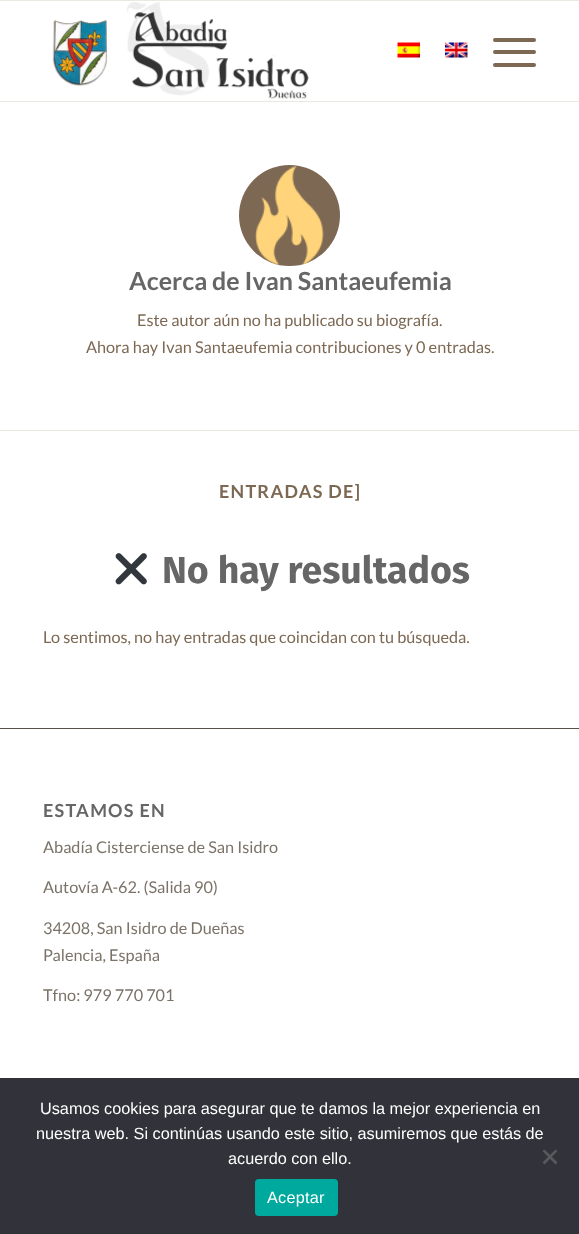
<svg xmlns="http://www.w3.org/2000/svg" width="579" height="1234">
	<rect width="100%" height="100%" fill="#FFFFFF" />
	<rect x="0" y="0" width="579" height="1" fill="#EBE8E2" />
	<rect x="0" y="101" width="579" height="1" fill="#EBE8E2" />
	<image x="52" y="2" width="257" height="97" href="assets/img1.png" />
	<image x="397" y="42" width="23" height="16" href="assets/img2.png" />
	<image x="445" y="42" width="23" height="16" href="assets/img3.png" />
	<rect x="493" y="50" width="43" height="4" rx="2" fill="#7C6853" />
	<rect x="493" y="38" width="43" height="4" rx="2" fill="#7C6853" />
	<rect x="493" y="63" width="43" height="4" rx="2" fill="#7C6853" />
	<circle cx="289.5" cy="215.5" r="50.5" fill="#7C6853" />
	<image x="255" y="166" width="69" height="99" href="assets/img4.png" />
	<text x="129" y="290" font-family="Lato" font-size="25" font-weight="700" fill="#666666">Acerca de Ivan Santaeufemia</text>
	<g font-family="Lato" font-size="16.25" fill="#7C6853">
		<text x="137" y="326">Este autor aún no ha publicado su biografía.</text>
		<text x="86" y="353">Ahora hay Ivan Santaeufemia contribuciones y 0 entradas.</text>
	</g>
	<rect x="0" y="430" width="579" height="1" fill="#EBE8E2" />
	<text x="219" y="498" font-family="Lato" font-size="18" font-weight="700" letter-spacing="1.25" fill="#7C6853">ENTRADAS DE]</text>
	<image x="115" y="553" width="32" height="32" href="assets/img5.png" />
	<text x="162" y="583" font-family="Fira Sans" font-size="37.5" font-weight="700" fill="#666666">No hay resultados</text>
	<text x="43" y="643" font-family="Lato" font-size="16.25" fill="#7C6853">Lo sentimos, no hay entradas que coincidan con tu búsqueda.</text>
	<rect x="0" y="728" width="579" height="1" fill="#575149" />
	<text x="43" y="817" font-family="Lato" font-size="18" font-weight="700" letter-spacing="1.25" fill="#666666">ESTAMOS EN</text>
	<g font-family="Lato" font-size="16.25" fill="#7B7368">
		<text x="43" y="853">Abadía Cisterciense de San Isidro</text>
		<text x="43" y="893">Autovía A-62. (Salida 90)</text>
		<text x="43" y="934">34208, San Isidro de Dueñas</text>
		<text x="43" y="961">Palencia, España</text>
		<text x="43" y="1001">Tfno: 979 770 701</text>
	</g>
	<rect x="0" y="1078" width="579" height="156" fill="#32323A" />
	<g font-family="Liberation Sans" font-size="16.25" fill="#FFFFFF">
		<text x="40" y="1114">Usamos cookies para asegurar que te damos la mejor experiencia en</text>
		<text x="36" y="1139">nuestra web. Si continúas usando este sitio, asumiremos que estás de</text>
		<text x="228" y="1164">acuerdo con ello.</text>
	</g>
	<path d="M555.5 1149.5L557.5 1151L544.5 1164.5L542.5 1162.5Z" fill="#59595D" />
	<path d="M542.5 1151L544.5 1149.5L557.5 1162.5L555.5 1164.5Z" fill="#59595D" />
	<rect x="255" y="1179" width="83" height="37" rx="4" fill="#00A99D" />
	<text x="267" y="1203" font-family="Liberation Sans" font-size="16.25" letter-spacing="0.25" fill="#FFFFFF">Aceptar</text>
</svg>
